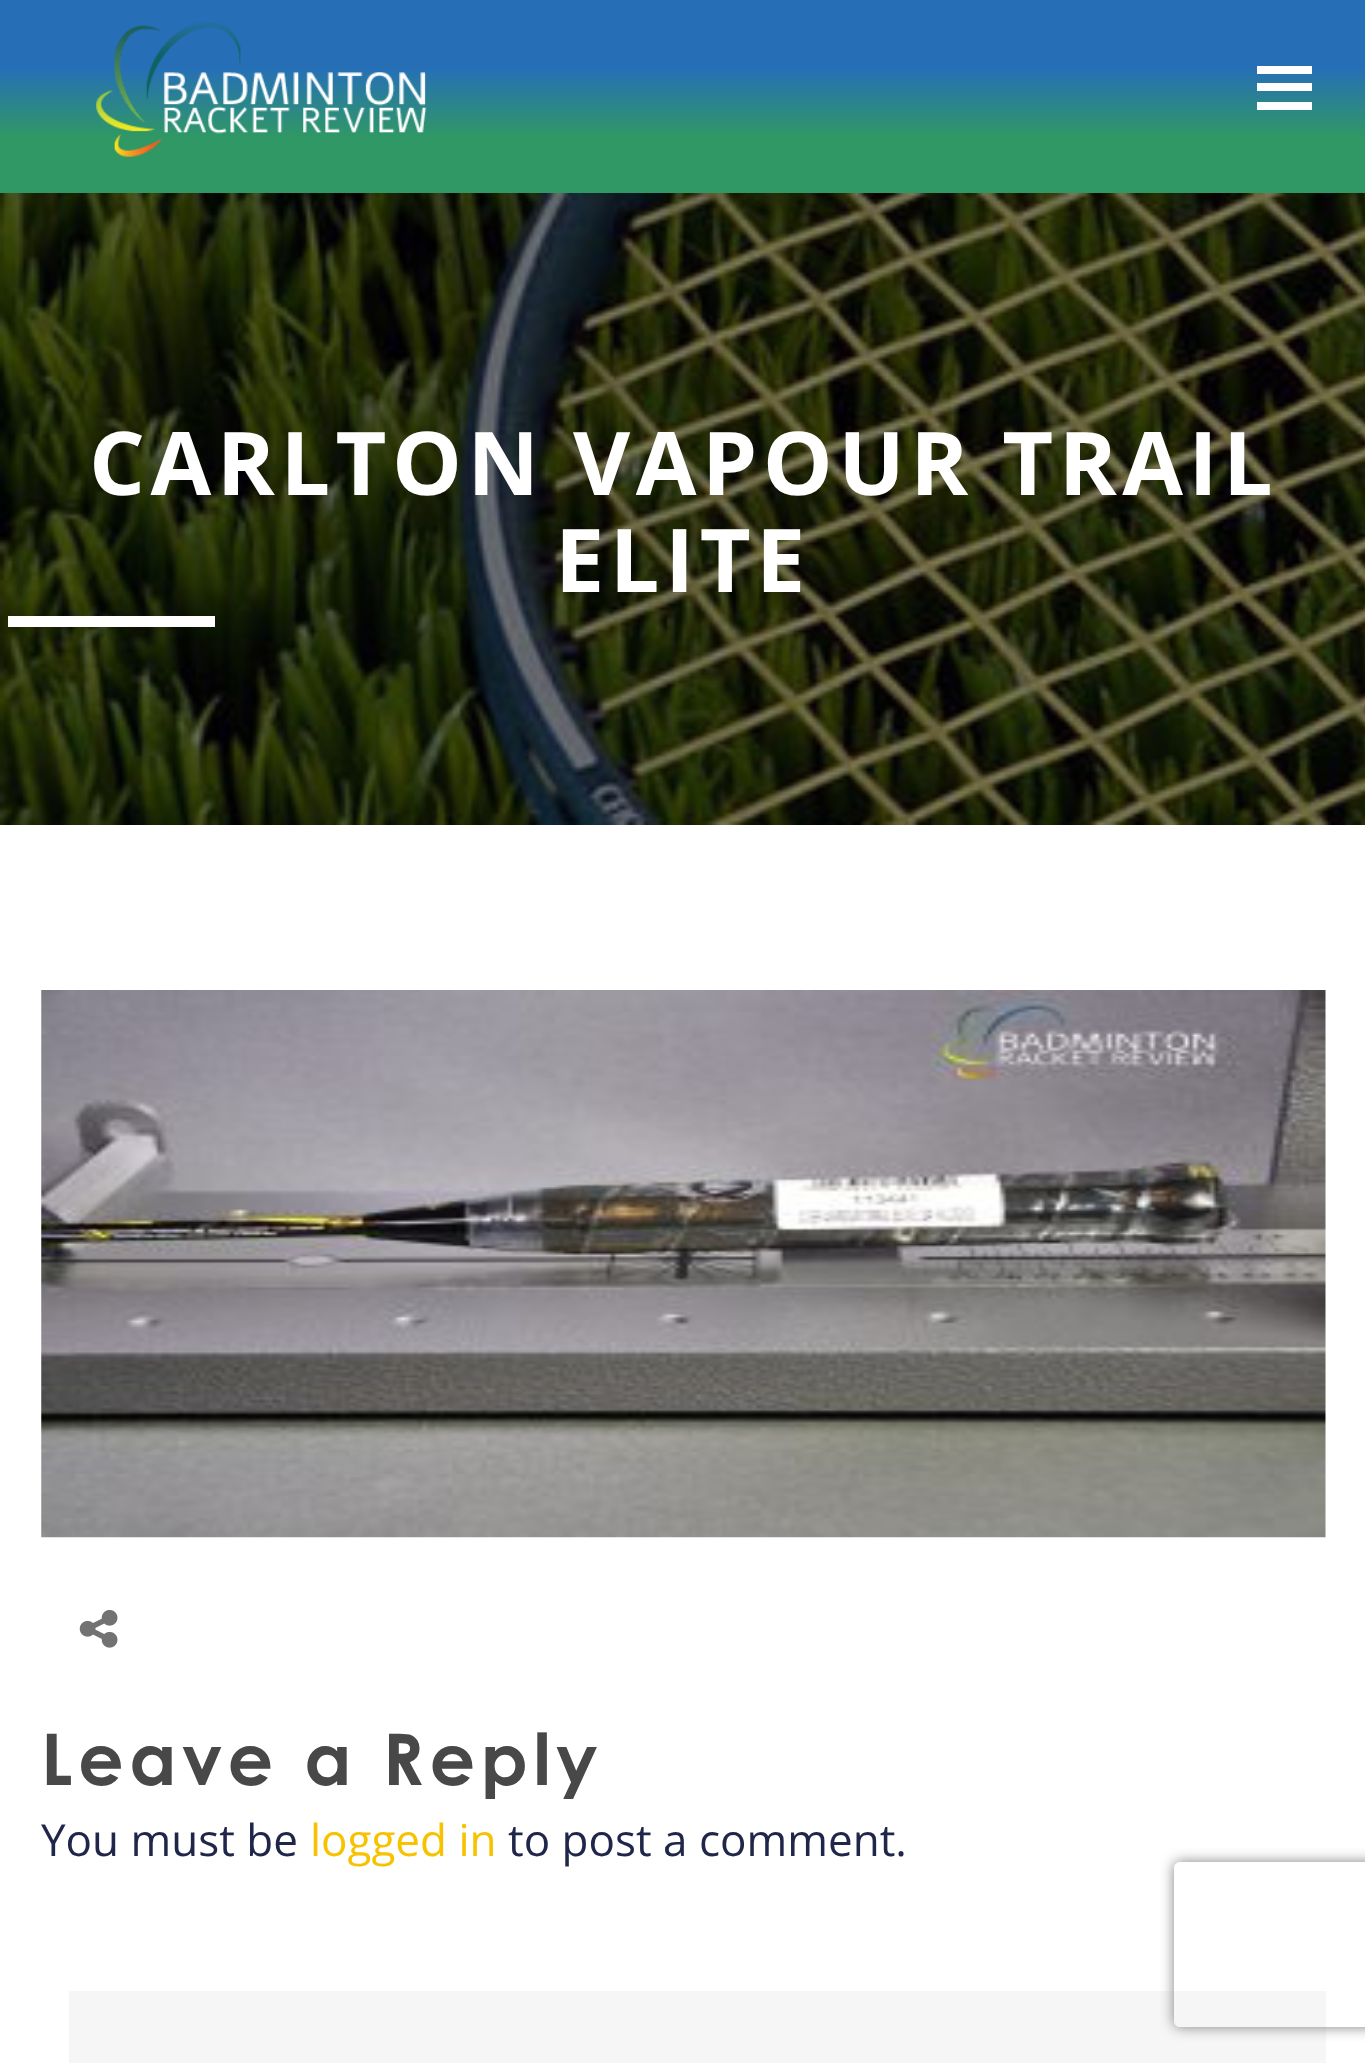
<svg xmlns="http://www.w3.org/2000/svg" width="1365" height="2063">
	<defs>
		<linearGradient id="g1" gradientUnits="userSpaceOnUse" x1="683" y1="193" x2="683" y2="0"><stop offset="0.29" stop-color="#2F9865" /><stop offset="0.65" stop-color="#266FB7" /></linearGradient>
		<clipPath id="clip1"><path d="M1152 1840H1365V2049H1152ZM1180 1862H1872C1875.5 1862 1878 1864.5 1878 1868V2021C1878 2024.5 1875.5 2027 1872 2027H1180C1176.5 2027 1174 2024.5 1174 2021V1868C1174 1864.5 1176.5 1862 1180 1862Z" clip-rule="evenodd" /></clipPath>
	</defs>
	<rect width="100%" height="100%" fill="#FFFFFF" />
	<rect x="0" y="0" width="1365" height="193" fill="url(#g1)" />
	<image x="96" y="22" width="331" height="135" href="assets/img1.png" />
	<rect x="1257" y="66" width="55" height="8" fill="#FFFFFF" />
	<rect x="1257" y="83" width="55" height="8" fill="#FFFFFF" />
	<rect x="1257" y="102" width="55" height="8" fill="#FFFFFF" />
	<image x="0" y="193" width="1365" height="632" href="assets/img2.png" />
	<g font-family="Open Sans" font-size="88" font-weight="700" letter-spacing="5.5" fill="#FFFFFF">
		<text x="89" y="495">CARLTON VAPOUR TRAIL</text>
		<text x="555" y="592">ELITE</text>
	</g>
	<rect x="8" y="616" width="207" height="11" fill="#FFFFFF" />
	<image x="41" y="990" width="1285" height="548" href="assets/img3.png" />
	<image x="79" y="1609" width="39" height="39" href="assets/img4.png" />
	<text x="41" y="1785" font-family="Century Gothic" font-size="71.5" font-weight="700" letter-spacing="5.5" fill="#484848">Leave a Reply</text>
	<text x="41" y="1856" font-family="Open Sans" font-size="44" fill="#1F2649">You must be</text>
	<text x="310" y="1856" font-family="Open Sans" font-size="44" fill="#F7C200">logged in</text>
	<text x="508" y="1856" font-family="Open Sans" font-size="44" fill="#1F2649">to post a comment.</text>
	<rect x="69" y="1991" width="1257" height="72" fill="#F6F6F6" />
	<g clip-path="url(#clip1)">
		<rect x="1174" y="1862" width="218" height="165" rx="6" fill="#808080" filter="blur(7px)" />
	</g>
</svg>
